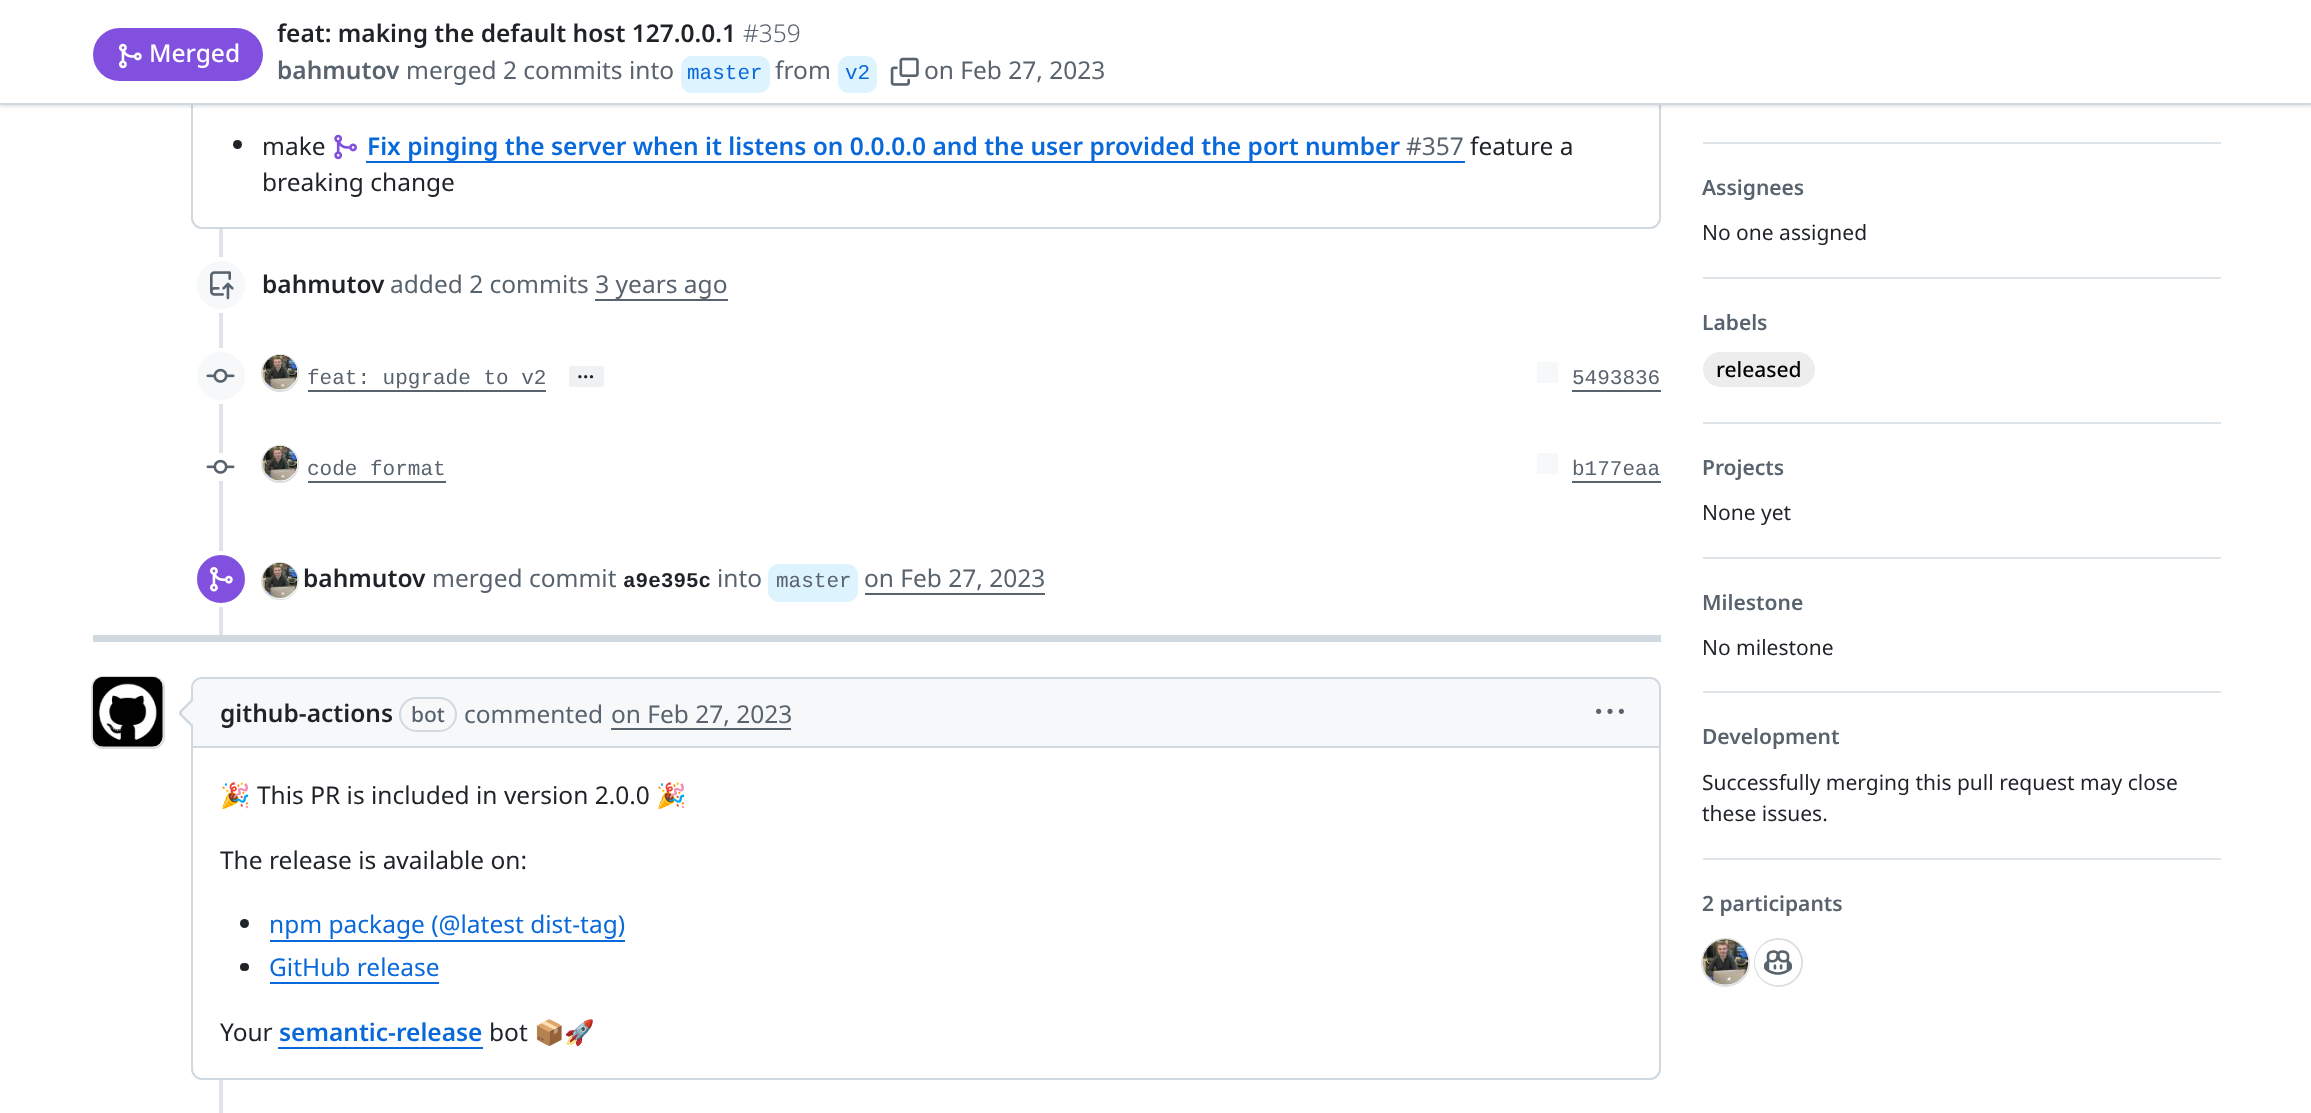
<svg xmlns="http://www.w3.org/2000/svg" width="2311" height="1113">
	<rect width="100%" height="100%" fill="#FFFFFF" />
	<rect x="192" y="31" width="1468" height="197" rx="10" fill="none" stroke="#D1D9E0" stroke-width="2" />
	<rect x="0" y="2" width="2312" height="105" fill="#1F2328" fill-opacity="0.06" filter="blur(2.5px)" />
	<rect x="0" y="2" width="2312" height="105" fill="#1F2328" fill-opacity="0.06" filter="blur(1px)" />
	<rect x="0" y="0" width="2311" height="103" fill="#FFFFFF" />
	<rect x="0" y="103" width="2311" height="2" fill="#D1D9E0" />
	<rect x="93" y="28" width="170" height="53" rx="26.5" fill="#8250DF" />
	<image x="119" y="43" width="23" height="26" href="assets/img1.png" />
	<text x="149" y="62" font-family="Noto Sans" font-size="24.5" font-weight="500" fill="#FFFFFF">Merged</text>
	<text x="277" y="42" font-family="Noto Sans" font-size="24.5" font-weight="600" fill="#1F2328">feat: making the default host 127.0.0.1</text>
	<text x="743" y="42" font-family="Noto Sans" font-size="24.5" font-weight="300" fill="#59636E">#359</text>
	<text x="277" y="79" font-family="Noto Sans" font-size="24.5" font-weight="600" fill="#59636E">bahmutov</text>
	<text x="406" y="79" font-family="Noto Sans" font-size="24.5" fill="#59636E">merged 2 commits into</text>
	<rect x="681" y="56" width="89" height="37" rx="11" fill="#DDF4FF" />
	<text x="687" y="79" font-family="Liberation Mono" font-size="21" fill="#0969DA">master</text>
	<text x="775" y="79" font-family="Noto Sans" font-size="24.5" fill="#59636E">from</text>
	<rect x="838" y="56" width="39" height="37" rx="11" fill="#DDF4FF" />
	<text x="845" y="79" font-family="Liberation Mono" font-size="21" fill="#0969DA">v2</text>
	<image x="890" y="57" width="29" height="29" href="assets/img2.png" />
	<text x="924" y="79" font-family="Noto Sans" font-size="24.5" fill="#59636E">on Feb 27, 2023</text>
	<circle cx="237.5" cy="144.5" r="4.5" fill="#1F2328" />
	<text x="262" y="155" font-family="Noto Sans" font-size="24.5" fill="#1F2328">make</text>
	<image x="334" y="134" width="23" height="26" href="assets/img3.png" />
	<text x="367" y="155" font-family="Noto Sans" font-size="24.5" font-weight="600" fill="#0969DA">Fix pinging the server when it listens on 0.0.0.0 and the user provided the port number</text>
	<rect x="366" y="161" width="1099" height="2" fill="#0969DA" />
	<text x="1406" y="155" font-family="Noto Sans" font-size="24.5" fill="#59636E">#357</text>
	<g font-family="Noto Sans" font-size="24.5" fill="#1F2328">
		<text x="1470" y="155">feature a</text>
		<text x="262" y="191">breaking change</text>
	</g>
	<rect x="219" y="229" width="4" height="406" fill="#DFE4E9" />
	<circle cx="221" cy="285" r="26" fill="#F6F8FA" stroke="#FFFFFF" stroke-width="4" />
	<image x="210" y="271" width="24" height="29" href="assets/img4.png" />
	<text x="262" y="293" font-family="Noto Sans" font-size="24.5" font-weight="600" fill="#1F2328">bahmutov</text>
	<text x="390" y="293" font-family="Noto Sans" font-size="24.5" fill="#59636E">added 2 commits 3 years ago</text>
	<rect x="595" y="299" width="133" height="2" fill="#59636E" />
	<circle cx="221" cy="376" r="26" fill="#F6F8FA" stroke="#FFFFFF" stroke-width="4" />
	<image x="206" y="368" width="29" height="15" href="assets/img5.png" />
	<circle cx="280" cy="373" r="18" fill="none" stroke="#DDDEDF" stroke-width="2" />
	<circle cx="280.5" cy="372.5" r="17.5" fill="#FFFFFF" />
	<image x="262" y="355" width="36" height="35" href="assets/img6.png" />
	<text x="307" y="384" font-family="Liberation Mono" font-size="21" fill="#59636E">feat: upgrade to v2</text>
	<rect x="308" y="390" width="238" height="2" fill="#59636E" />
	<rect x="569" y="366" width="35" height="21" rx="2" fill="#F0F1F3" />
	<text x="577" y="378" font-family="Noto Sans" font-size="21" font-weight="600" fill="#1F2328">…</text>
	<rect x="1537" y="362" width="21" height="21" fill="#F6F8FA" />
	<text x="1572" y="384" font-family="Liberation Mono" font-size="21" fill="#59636E">5493836</text>
	<rect x="1572" y="390" width="89" height="2" fill="#59636E" />
	<ellipse cx="220.5" cy="467" rx="28" ry="14" fill="#FFFFFF" />
	<image x="206" y="459" width="29" height="15" href="assets/img7.png" />
	<circle cx="280" cy="464" r="18" fill="none" stroke="#DDDEDF" stroke-width="2" />
	<circle cx="280.5" cy="463.5" r="17.5" fill="#FFFFFF" />
	<image x="262" y="446" width="36" height="35" href="assets/img6.png" />
	<text x="307" y="475" font-family="Liberation Mono" font-size="21" fill="#59636E">code format</text>
	<rect x="308" y="481" width="138" height="2" fill="#59636E" />
	<rect x="1537" y="453" width="21" height="21" fill="#F6F8FA" />
	<text x="1572" y="475" font-family="Liberation Mono" font-size="21" fill="#59636E">b177eaa</text>
	<rect x="1572" y="481" width="89" height="2" fill="#59636E" />
	<circle cx="221" cy="579" r="26" fill="#8250DF" stroke="#FFFFFF" stroke-width="4" />
	<image x="210" y="567" width="23" height="25" href="assets/img8.png" />
	<circle cx="280" cy="581" r="18" fill="none" stroke="#DDDEDF" stroke-width="2" />
	<circle cx="280.5" cy="581.5" r="17.5" fill="#FFFFFF" />
	<image x="262" y="563" width="36" height="35" href="assets/img9.png" />
	<text x="303" y="587" font-family="Noto Sans" font-size="24.5" font-weight="600" fill="#1F2328">bahmutov</text>
	<text x="432" y="587" font-family="Noto Sans" font-size="24.5" fill="#59636E">merged commit</text>
	<text x="623" y="587" font-family="Liberation Mono" font-size="21" font-weight="700" fill="#1F2328">a9e395c</text>
	<text x="717" y="587" font-family="Noto Sans" font-size="24.5" fill="#59636E">into</text>
	<rect x="768" y="564" width="90" height="38" rx="11" fill="#DDF4FF" />
	<text x="776" y="587" font-family="Liberation Mono" font-size="21" fill="#59636E">master</text>
	<text x="864" y="587" font-family="Noto Sans" font-size="24.5" fill="#59636E">on Feb 27, 2023</text>
	<rect x="865" y="593" width="180" height="2" fill="#59636E" />
	<rect x="93" y="635" width="1568" height="7" fill="#D1D9E0" />
	<rect x="92" y="677" width="72" height="71" rx="11" fill="none" stroke="#DDDEDF" stroke-width="2" />
	<rect x="93" y="677" width="70" height="70" rx="11" fill="#FFFFFF" />
	<image x="92" y="676" width="71" height="71" href="assets/img10.png" />
	<rect x="192" y="678" width="1468" height="401" rx="10" fill="none" stroke="#D1D9E0" stroke-width="2" />
	<path d="M179 714.5V711.5L191.5 699V726H190.5Z" fill="#D1D9E0" />
	<path d="M204 679H1648C1654 679 1659 684 1659 690V747H193V690C193 684 198 679 204 679Z" fill="#F6F8FA" />
	<path d="M182 714V712L195 699V726H194Z" fill="#F6F8FA" />
	<rect x="193" y="746" width="1466" height="2" fill="#D1D9E0" />
	<text x="220" y="722" font-family="Noto Sans" font-size="24.5" font-weight="600" fill="#1F2328">github-actions</text>
	<rect x="400" y="698" width="56" height="33" rx="16.5" fill="none" stroke="#D1D9E0" stroke-width="2" />
	<text x="411" y="722" font-family="Noto Sans" font-size="21" font-weight="500" fill="#59636E">bot</text>
	<g font-family="Noto Sans" font-size="24.5" fill="#59636E">
		<text x="464" y="723">commented</text>
		<text x="611" y="723">on Feb 27, 2023</text>
	</g>
	<rect x="611" y="728" width="180" height="2" fill="#59636E" />
	<image x="1596" y="708" width="28" height="6" href="assets/img11.png" />
	<text x="220" y="804" font-family="Noto Color Emoji" font-size="24.5" fill="#1F2328">🎉</text>
	<text x="257" y="804" font-family="Noto Sans" font-size="24.5" fill="#1F2328">This PR is included in version 2.0.0</text>
	<text x="656" y="804" font-family="Noto Color Emoji" font-size="24.5" fill="#1F2328">🎉</text>
	<text x="220" y="869" font-family="Noto Sans" font-size="24.5" fill="#1F2328">The release is available on:</text>
	<circle cx="244.5" cy="923.5" r="4.5" fill="#1F2328" />
	<text x="269" y="933" font-family="Noto Sans" font-size="24.5" fill="#0969DA">npm package (@latest dist-tag)</text>
	<rect x="270" y="940" width="355" height="2" fill="#0969DA" />
	<rect x="240" y="963" width="9" height="8" rx="4" fill="#1F2328" />
	<text x="269" y="976" font-family="Noto Sans" font-size="24.5" fill="#0969DA">GitHub release</text>
	<rect x="270" y="982" width="169" height="2" fill="#0969DA" />
	<text x="220" y="1041" font-family="Noto Sans" font-size="24.5" fill="#1F2328">Your</text>
	<text x="279" y="1041" font-family="Noto Sans" font-size="24.5" font-weight="600" fill="#0969DA">semantic-release</text>
	<rect x="278" y="1047" width="205" height="2" fill="#0969DA" />
	<text x="489" y="1041" font-family="Noto Sans" font-size="24.5" fill="#1F2328">bot</text>
	<text x="534" y="1041" font-family="Noto Color Emoji" font-size="24.5" fill="#1F2328">📦🚀</text>
	<rect x="219" y="1080" width="4" height="33" fill="#DFE4E9" />
	<rect x="1703" y="142" width="518" height="2" fill="#DFE4E9" />
	<text x="1702" y="195" font-family="Noto Sans" font-size="21" font-weight="600" fill="#59636E">Assignees</text>
	<text x="1702" y="240" font-family="Noto Sans" font-size="21" fill="#1F2328">No one assigned</text>
	<rect x="1703" y="277" width="518" height="2" fill="#DFE4E9" />
	<text x="1702" y="330" font-family="Noto Sans" font-size="21" font-weight="600" fill="#59636E">Labels</text>
	<rect x="1703" y="352" width="112" height="35" rx="17.5" fill="#EDEDED" />
	<text x="1716" y="377" font-family="Noto Sans" font-size="21" font-weight="500" fill="#000000">released</text>
	<rect x="1703" y="422" width="518" height="2" fill="#DFE4E9" />
	<text x="1702" y="475" font-family="Noto Sans" font-size="21" font-weight="600" fill="#59636E">Projects</text>
	<text x="1702" y="520" font-family="Noto Sans" font-size="21" fill="#1F2328">None yet</text>
	<rect x="1703" y="557" width="518" height="2" fill="#DFE4E9" />
	<text x="1702" y="610" font-family="Noto Sans" font-size="21" font-weight="600" fill="#59636E">Milestone</text>
	<text x="1702" y="655" font-family="Noto Sans" font-size="21" fill="#1F2328">No milestone</text>
	<rect x="1703" y="691" width="518" height="2" fill="#DFE4E9" />
	<text x="1702" y="744" font-family="Noto Sans" font-size="21" font-weight="600" fill="#59636E">Development</text>
	<g font-family="Noto Sans" font-size="21" fill="#1F2328">
		<text x="1702" y="790">Successfully merging this pull request may close</text>
		<text x="1702" y="821">these issues.</text>
	</g>
	<rect x="1703" y="858" width="518" height="2" fill="#DFE4E9" />
	<text x="1702" y="911" font-family="Noto Sans" font-size="21" font-weight="600" fill="#59636E">2 participants</text>
	<circle cx="1725.5" cy="962.5" r="23.5" fill="none" stroke="#DDDEDF" stroke-width="2" />
	<circle cx="1725.5" cy="962.5" r="22.5" fill="#FFFFFF" />
	<image x="1702" y="939" width="47" height="46" href="assets/img12.png" />
	<circle cx="1778.5" cy="962.5" r="23.5" fill="none" stroke="#DDDEDF" stroke-width="2" />
	<rect x="1755" y="940" width="46" height="45" rx="22.5" fill="#FFFFFF" />
	<image x="1764" y="950" width="28" height="25" href="assets/img13.png" />
</svg>
